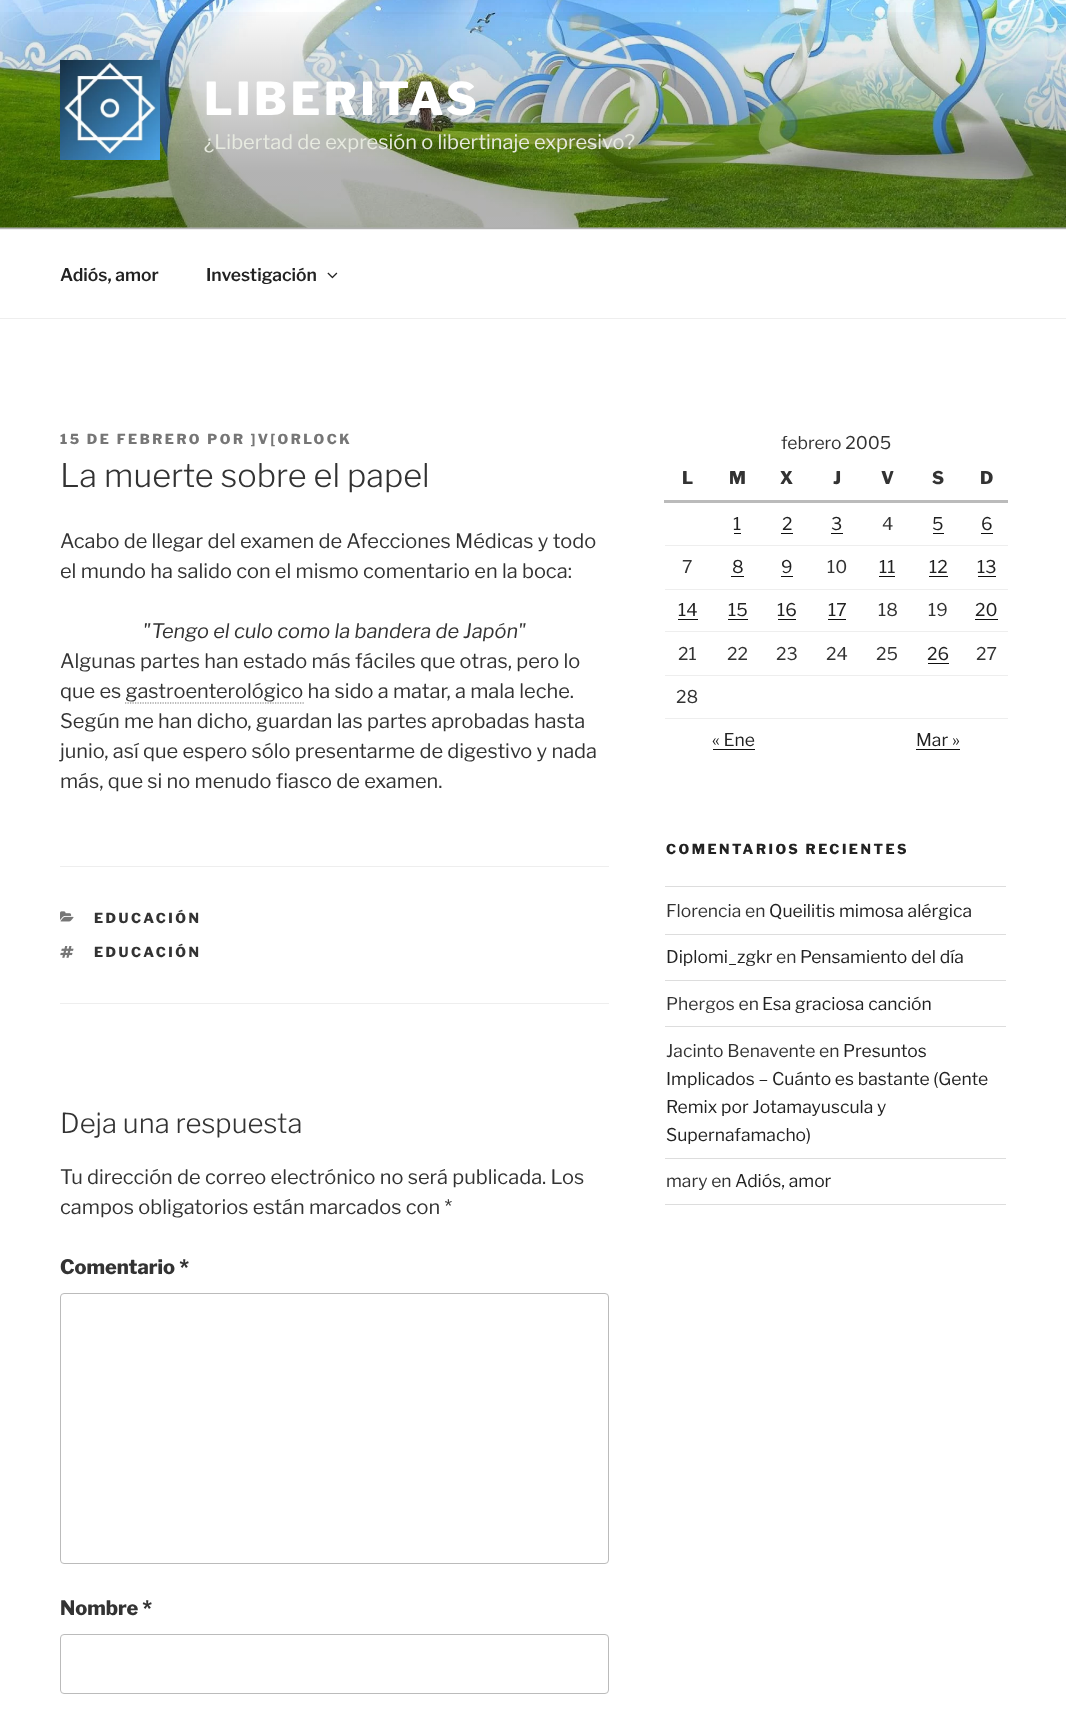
<svg xmlns="http://www.w3.org/2000/svg" width="1066" height="1709">
	<defs>
		<linearGradient id="g1" gradientUnits="userSpaceOnUse" x1="533" y1="0" x2="533" y2="229"><stop offset="0" stop-color="#000000" stop-opacity="0" /><stop offset="0.75" stop-color="#000000" stop-opacity="0.3" /><stop offset="1" stop-color="#000000" stop-opacity="0.3" /></linearGradient>
	</defs>
	<rect width="100%" height="100%" fill="#FFFFFF" />
	<rect x="0" y="227" width="1066" height="2" fill="#FAFAFA" />
	<image x="0" y="0" width="1066" height="228" href="assets/img1.png" />
	<rect x="0" y="12" width="1066" height="217" fill="url(#g1)" />
	<image x="60" y="60" width="100" height="100" href="assets/img2.png" />
	<text x="204" y="115" font-family="Libre Franklin" font-size="45" font-weight="100" letter-spacing="3.5" fill="#FFFFFF">LIBERITAS</text>
	<text x="204" y="149" font-family="'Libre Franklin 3'" font-size="20" font-weight="100" fill="#E7EAE0">¿Libertad de expresión o libertinaje expresivo?</text>
	<rect x="0" y="229" width="1066" height="1" fill="#EEEEEE" />
	<rect x="0" y="318" width="1066" height="1" fill="#EEEEEE" />
	<g font-family="'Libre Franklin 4'" font-size="17.5" font-weight="100" fill="#222222">
		<text x="60" y="281">Adiós, amor</text>
		<text x="206" y="281">Investigación</text>
	</g>
	<image x="327" y="272" width="11" height="7" href="assets/img3.png" />
	<text x="60" y="444" font-family="Libre Franklin" font-size="13.75" font-weight="100" letter-spacing="2.5" fill="#767676">15 DE FEBRERO POR ]V[ORLOCK</text>
	<text x="60" y="487" font-family="'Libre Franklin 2'" font-size="32.5" font-weight="100" fill="#333333">La muerte sobre el papel</text>
	<g font-family="'Libre Franklin 3'" font-size="20" font-weight="100" fill="#333333">
		<text x="60" y="548">Acabo de llegar del examen de Afecciones Médicas y todo</text>
		<text x="60" y="578">el mundo ha salido con el mismo comentario en la boca:</text>
	</g>
	<text x="143" y="638" font-family="Libre Franklin" font-size="20" font-weight="100" font-style="italic" fill="#333333">"Tengo el culo como la bandera de Japón"</text>
	<g font-family="'Libre Franklin 3'" font-size="20" font-weight="100" fill="#333333">
		<text x="60" y="668">Algunas partes han estado más fáciles que otras, pero lo</text>
		<text x="60" y="698">que es gastroenterológico ha sido a matar, a mala leche.</text>
	</g>
	<path d="M125 703H304" fill="none" stroke="#767676" stroke-width="1.2" stroke-dasharray="1.25 1.25" />
	<g font-family="'Libre Franklin 3'" font-size="20" font-weight="100" fill="#333333">
		<text x="60" y="728">Según me han dicho, guardan las partes aprobadas hasta</text>
		<text x="60" y="758">junio, así que espero sólo presentarme de digestivo y nada</text>
		<text x="60" y="788">más, que si no menudo fiasco de examen.</text>
	</g>
	<rect x="60" y="866" width="549" height="1" fill="#EEEEEE" />
	<rect x="60" y="1003" width="549" height="1" fill="#EEEEEE" />
	<image x="60" y="911" width="14" height="11" href="assets/img4.png" />
	<text x="94" y="923" font-family="Libre Franklin" font-size="13.75" font-weight="100" letter-spacing="2.5" fill="#333333">EDUCACIÓN</text>
	<image x="60" y="946" width="14" height="12" href="assets/img5.png" />
	<text x="94" y="957" font-family="Libre Franklin" font-size="13.75" font-weight="100" letter-spacing="2.5" fill="#333333">EDUCACIÓN</text>
	<text x="60" y="1133" font-family="'Libre Franklin 2'" font-size="27.5" font-weight="100" fill="#333333">Deja una respuesta</text>
	<g font-family="'Libre Franklin 3'" font-size="20" font-weight="100" fill="#333333">
		<text x="60" y="1184">Tu dirección de correo electrónico no será publicada. Los</text>
		<text x="60" y="1214">campos obligatorios están marcados con *</text>
	</g>
	<text x="60" y="1274" font-family="Libre Franklin" font-size="20" font-weight="100" fill="#333333">Comentario *</text>
	<rect x="60.5" y="1293.5" width="548" height="270" rx="3.5" fill="none" stroke="#BBBBBB" />
	<text x="60" y="1615" font-family="Libre Franklin" font-size="20" font-weight="100" fill="#333333">Nombre *</text>
	<rect x="60.5" y="1634.5" width="548" height="59" rx="3.5" fill="none" stroke="#BBBBBB" />
	<text x="781" y="449" font-family="'Libre Franklin 3'" font-size="17.5" font-weight="100" fill="#333333">febrero 2005</text>
	<g font-family="Libre Franklin" font-size="17.5" font-weight="100" fill="#333333">
		<text x="682" y="484">L</text>
		<text x="729" y="484">M</text>
		<text x="780" y="484">X</text>
		<text x="833" y="484">J</text>
		<text x="881" y="484">V</text>
		<text x="932" y="484">S</text>
	</g>
	<rect x="664" y="500" width="344" height="3" fill="#BBBBBB" />
	<text x="980" y="484" font-family="Libre Franklin" font-size="17.5" font-weight="100" fill="#333333">D</text>
	<rect x="665" y="545" width="343" height="1" fill="#EEEEEE" />
	<text x="733" y="530" font-family="'Libre Franklin 3'" font-size="17.5" font-weight="100" fill="#222222">1</text>
	<rect x="734" y="533" width="7" height="1" fill="#0F0F0F" />
	<text x="782" y="530" font-family="'Libre Franklin 3'" font-size="17.5" font-weight="100" fill="#222222">2</text>
	<rect x="781" y="533" width="12" height="1" fill="#0F0F0F" />
	<text x="831" y="530" font-family="'Libre Franklin 3'" font-size="17.5" font-weight="100" fill="#222222">3</text>
	<rect x="831" y="533" width="12" height="1" fill="#0F0F0F" />
	<text x="882" y="530" font-family="'Libre Franklin 3'" font-size="17.5" font-weight="100" fill="#333333">4</text>
	<text x="932" y="530" font-family="'Libre Franklin 3'" font-size="17.5" font-weight="100" fill="#222222">5</text>
	<rect x="933" y="533" width="11" height="1" fill="#0F0F0F" />
	<text x="981" y="530" font-family="'Libre Franklin 3'" font-size="17.5" font-weight="100" fill="#222222">6</text>
	<rect x="981" y="533" width="12" height="1" fill="#0F0F0F" />
	<rect x="665" y="589" width="343" height="1" fill="#EEEEEE" />
	<text x="682" y="573" font-family="'Libre Franklin 3'" font-size="17.5" font-weight="100" fill="#333333">7</text>
	<text x="732" y="573" font-family="'Libre Franklin 3'" font-size="17.5" font-weight="100" fill="#222222">8</text>
	<rect x="731" y="576" width="13" height="1" fill="#0F0F0F" />
	<text x="781" y="573" font-family="'Libre Franklin 3'" font-size="17.5" font-weight="100" fill="#222222">9</text>
	<rect x="781" y="576" width="12" height="1" fill="#0F0F0F" />
	<text x="827" y="573" font-family="'Libre Franklin 3'" font-size="17.5" font-weight="100" fill="#333333">10</text>
	<text x="879" y="573" font-family="'Libre Franklin 3'" font-size="17.5" font-weight="100" fill="#222222">11</text>
	<rect x="879" y="576" width="16" height="1" fill="#0F0F0F" />
	<text x="929" y="573" font-family="'Libre Franklin 3'" font-size="17.5" font-weight="100" fill="#222222">12</text>
	<rect x="929" y="576" width="19" height="1" fill="#0F0F0F" />
	<text x="977" y="573" font-family="'Libre Franklin 3'" font-size="17.5" font-weight="100" fill="#222222">13</text>
	<rect x="978" y="576" width="18" height="1" fill="#0F0F0F" />
	<rect x="665" y="631" width="343" height="1" fill="#EEEEEE" />
	<text x="678" y="616" font-family="'Libre Franklin 3'" font-size="17.5" font-weight="100" fill="#222222">14</text>
	<rect x="678" y="619" width="20" height="1" fill="#0F0F0F" />
	<text x="728" y="616" font-family="'Libre Franklin 3'" font-size="17.5" font-weight="100" fill="#222222">15</text>
	<rect x="728" y="619" width="20" height="1" fill="#0F0F0F" />
	<text x="777" y="616" font-family="'Libre Franklin 3'" font-size="17.5" font-weight="100" fill="#222222">16</text>
	<rect x="778" y="619" width="18" height="1" fill="#0F0F0F" />
	<text x="828" y="616" font-family="'Libre Franklin 3'" font-size="17.5" font-weight="100" fill="#222222">17</text>
	<rect x="828" y="619" width="18" height="1" fill="#0F0F0F" />
	<g font-family="'Libre Franklin 3'" font-size="17.5" font-weight="100" fill="#333333">
		<text x="878" y="616">18</text>
		<text x="928" y="616">19</text>
	</g>
	<text x="975" y="616" font-family="'Libre Franklin 3'" font-size="17.5" font-weight="100" fill="#222222">20</text>
	<rect x="975" y="619" width="23" height="1" fill="#0F0F0F" />
	<rect x="665" y="675" width="343" height="1" fill="#EEEEEE" />
	<g font-family="'Libre Franklin 3'" font-size="17.5" font-weight="100" fill="#333333">
		<text x="678" y="660">21</text>
		<text x="727" y="660">22</text>
		<text x="776" y="660">23</text>
		<text x="826" y="660">24</text>
		<text x="876" y="660">25</text>
	</g>
	<text x="927" y="660" font-family="'Libre Franklin 3'" font-size="17.5" font-weight="100" fill="#222222">26</text>
	<rect x="928" y="663" width="21" height="1" fill="#0F0F0F" />
	<text x="976" y="660" font-family="'Libre Franklin 3'" font-size="17.5" font-weight="100" fill="#333333">27</text>
	<rect x="665" y="718" width="343" height="1" fill="#EEEEEE" />
	<text x="676" y="703" font-family="'Libre Franklin 3'" font-size="17.5" font-weight="100" fill="#333333">28</text>
	<text x="712" y="746" font-family="'Libre Franklin 3'" font-size="17.5" font-weight="100" fill="#222222">« Ene</text>
	<rect x="713" y="749" width="42" height="1" fill="#0F0F0F" />
	<text x="916" y="746" font-family="'Libre Franklin 3'" font-size="17.5" font-weight="100" fill="#222222">Mar »</text>
	<rect x="916" y="749" width="44" height="1" fill="#0F0F0F" />
	<text x="666" y="854" font-family="Libre Franklin" font-size="13.75" font-weight="100" letter-spacing="2.5" fill="#222222">COMENTARIOS RECIENTES</text>
	<rect x="665" y="886" width="341" height="1" fill="#DDDDDD" />
	<rect x="665" y="934" width="341" height="1" fill="#DDDDDD" />
	<text x="666" y="917" font-family="'Libre Franklin 3'" font-size="17.5" font-weight="100" fill="#333333">Florencia en</text>
	<text x="769" y="917" font-family="'Libre Franklin 3'" font-size="17.5" font-weight="100" fill="#222222">Queilitis mimosa alérgica</text>
	<rect x="665" y="980" width="341" height="1" fill="#DDDDDD" />
	<text x="666" y="963" font-family="'Libre Franklin 3'" font-size="17.5" font-weight="100" fill="#222222">Diplomi_zgkr</text>
	<text x="776" y="963" font-family="'Libre Franklin 3'" font-size="17.5" font-weight="100" fill="#333333">en</text>
	<text x="800" y="963" font-family="'Libre Franklin 3'" font-size="17.5" font-weight="100" fill="#222222">Pensamiento del día</text>
	<rect x="665" y="1026" width="341" height="1" fill="#DDDDDD" />
	<text x="666" y="1010" font-family="'Libre Franklin 3'" font-size="17.5" font-weight="100" fill="#333333">Phergos en</text>
	<text x="762" y="1010" font-family="'Libre Franklin 3'" font-size="17.5" font-weight="100" fill="#222222">Esa graciosa canción</text>
	<rect x="665" y="1158" width="341" height="1" fill="#DDDDDD" />
	<text x="666" y="1057" font-family="'Libre Franklin 3'" font-size="17.5" font-weight="100" fill="#333333">Jacinto Benavente en</text>
	<g font-family="'Libre Franklin 3'" font-size="17.5" font-weight="100" fill="#222222">
		<text x="843" y="1057">Presuntos</text>
		<text x="666" y="1085">Implicados – Cuánto es bastante (Gente</text>
		<text x="666" y="1113">Remix por Jotamayuscula y</text>
		<text x="666" y="1141">Supernafamacho)</text>
	</g>
	<rect x="665" y="1204" width="341" height="1" fill="#DDDDDD" />
	<text x="666" y="1187" font-family="'Libre Franklin 3'" font-size="17.5" font-weight="100" fill="#333333">mary en</text>
	<text x="735" y="1187" font-family="'Libre Franklin 3'" font-size="17.5" font-weight="100" fill="#222222">Adiós, amor</text>
</svg>
